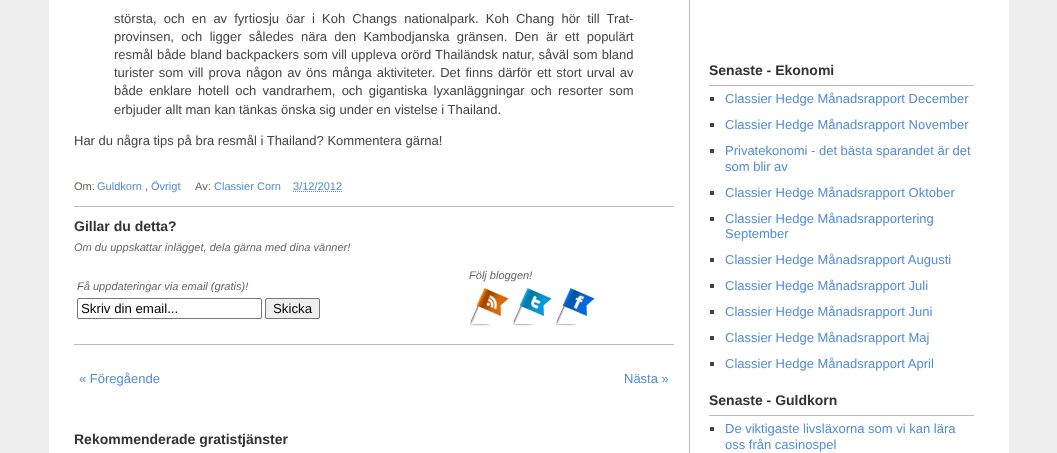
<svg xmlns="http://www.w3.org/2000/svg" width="1057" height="453">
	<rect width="100%" height="100%" fill="#EEEEEE" />
	<rect x="49" y="0" width="960" height="453" fill="#FFFFFF" />
	<rect x="689" y="0" width="1" height="453" fill="#BBBBBB" />
	<g font-family="Liberation Sans" font-size="13" fill="#444444">
		<text x="114" y="23" word-spacing="3.5">största, och en av fyrtiosju öar i Koh Changs nationalpark. Koh Chang hör till Trat-</text>
		<text x="114" y="41" word-spacing="3.75">provinsen, och ligger således nära den Kambodjanska gränsen. Den är ett populärt</text>
		<text x="114" y="59" word-spacing="0.5">resmål både bland backpackers som vill uppleva orörd Thailändsk natur, såväl som bland</text>
		<text x="114" y="77" word-spacing="1.4">turister som vill prova någon av öns många aktiviteter. Det finns därför ett stort urval av</text>
		<text x="114" y="95" word-spacing="2.6">både enklare hotell och vandrarhem, och gigantiska lyxanläggningar och resorter som</text>
		<text x="114" y="114">erbjuder allt man kan tänkas önska sig under en vistelse i Thailand.</text>
		<text x="74" y="145">Har du några tips på bra resmål i Thailand? Kommentera gärna!</text>
	</g>
	<rect x="74" y="344" width="600" height="1" fill="#BBBBBB" />
	<text x="74" y="190" font-family="Liberation Sans" font-size="11.05" fill="#666555">Om:</text>
	<text x="97" y="190" font-family="Liberation Sans" font-size="11.05" fill="#538CD6">Guldkorn</text>
	<text x="145" y="190" font-family="Liberation Sans" font-size="11.05" fill="#666555">,</text>
	<text x="151" y="190" font-family="Liberation Sans" font-size="11.05" fill="#538CD6">Övrigt</text>
	<text x="195" y="190" font-family="Liberation Sans" font-size="11.05" fill="#666555">Av:</text>
	<g font-family="Liberation Sans" font-size="11.05" fill="#538CD6">
		<text x="214" y="190">Classier Corn</text>
		<text x="293" y="190">3/12/2012</text>
	</g>
	<path d="M293 191.5H342.5" fill="none" stroke="#538CD6" stroke-dasharray="1 1" />
	<rect x="74" y="206" width="600" height="1" fill="#BBBBBB" />
	<text x="74" y="231" font-family="Liberation Sans" font-size="14" font-weight="700" fill="#333333">Gillar du detta?</text>
	<g font-family="Liberation Sans" font-size="11.05" font-style="italic" fill="#666666">
		<text x="74" y="251">Om du uppskattar inlägget, dela gärna med dina vänner!</text>
		<text x="469" y="279">Följ bloggen!</text>
	</g>
	<image x="470" y="287" width="39" height="39" href="assets/img1.png" />
	<image x="513" y="287" width="39" height="39" href="assets/img2.png" />
	<image x="556" y="287" width="39" height="39" href="assets/img3.png" />
	<text x="77" y="290" font-family="Liberation Sans" font-size="11.05" font-style="italic" fill="#666666">Få uppdateringar via email (gratis)!</text>
	<rect x="77.5" y="298.5" width="184" height="20" rx="1.5" fill="none" stroke="#767676" />
	<text x="81" y="313" font-family="Liberation Sans" font-size="13.25" fill="#000000">Skriv din email...</text>
	<rect x="265.5" y="298.5" width="54" height="20" rx="1.5" fill="#EFEFEF" stroke="#767676" />
	<text x="273" y="313" font-family="Liberation Sans" font-size="13.25" fill="#000000">Skicka</text>
	<g font-family="Liberation Sans" font-size="13" fill="#538CD6">
		<text x="79" y="383">« Föregående</text>
		<text x="624" y="383">Nästa »</text>
	</g>
	<text x="74" y="444" font-family="Liberation Sans" font-size="14" font-weight="700" fill="#333333">Rekommenderade gratistjänster</text>
	<rect x="709" y="85" width="265" height="1" fill="#BBBBBB" />
	<text x="709" y="75" font-family="Liberation Sans" font-size="14" font-weight="700" fill="#333333">Senaste - Ekonomi</text>
	<rect x="710" y="97" width="4" height="4" fill="#444444" />
	<text x="725" y="103" font-family="Liberation Sans" font-size="13" fill="#538CD6">Classier Hedge Månadsrapport December</text>
	<rect x="710" y="123" width="4" height="4" fill="#444444" />
	<text x="725" y="129" font-family="Liberation Sans" font-size="13" fill="#538CD6">Classier Hedge Månadsrapport November</text>
	<rect x="710" y="149" width="4" height="4" fill="#444444" />
	<g font-family="Liberation Sans" font-size="13" fill="#538CD6">
		<text x="725" y="155">Privatekonomi - det bästa sparandet är det</text>
		<text x="725" y="171">som blir av</text>
	</g>
	<rect x="710" y="191" width="4" height="4" fill="#444444" />
	<text x="725" y="197" font-family="Liberation Sans" font-size="13" fill="#538CD6">Classier Hedge Månadsrapport Oktober</text>
	<rect x="710" y="217" width="4" height="4" fill="#444444" />
	<g font-family="Liberation Sans" font-size="13" fill="#538CD6">
		<text x="725" y="223">Classier Hedge Månadsrapportering</text>
		<text x="725" y="238">September</text>
	</g>
	<rect x="710" y="258" width="4" height="4" fill="#444444" />
	<text x="725" y="264" font-family="Liberation Sans" font-size="13" fill="#538CD6">Classier Hedge Månadsrapport Augusti</text>
	<rect x="710" y="284" width="4" height="4" fill="#444444" />
	<text x="725" y="290" font-family="Liberation Sans" font-size="13" fill="#538CD6">Classier Hedge Månadsrapport Juli</text>
	<rect x="710" y="310" width="4" height="4" fill="#444444" />
	<text x="725" y="316" font-family="Liberation Sans" font-size="13" fill="#538CD6">Classier Hedge Månadsrapport Juni</text>
	<rect x="710" y="336" width="4" height="4" fill="#444444" />
	<text x="725" y="342" font-family="Liberation Sans" font-size="13" fill="#538CD6">Classier Hedge Månadsrapport Maj</text>
	<rect x="710" y="362" width="4" height="4" fill="#444444" />
	<text x="725" y="368" font-family="Liberation Sans" font-size="13" fill="#538CD6">Classier Hedge Månadsrapport April</text>
	<rect x="709" y="415" width="265" height="1" fill="#BBBBBB" />
	<text x="709" y="405" font-family="Liberation Sans" font-size="14" font-weight="700" fill="#333333">Senaste - Guldkorn</text>
	<rect x="710" y="427" width="4" height="4" fill="#444444" />
	<g font-family="Liberation Sans" font-size="13" fill="#538CD6">
		<text x="725" y="433">De viktigaste livsläxorna som vi kan lära</text>
		<text x="725" y="449">oss från casinospel</text>
	</g>
</svg>
